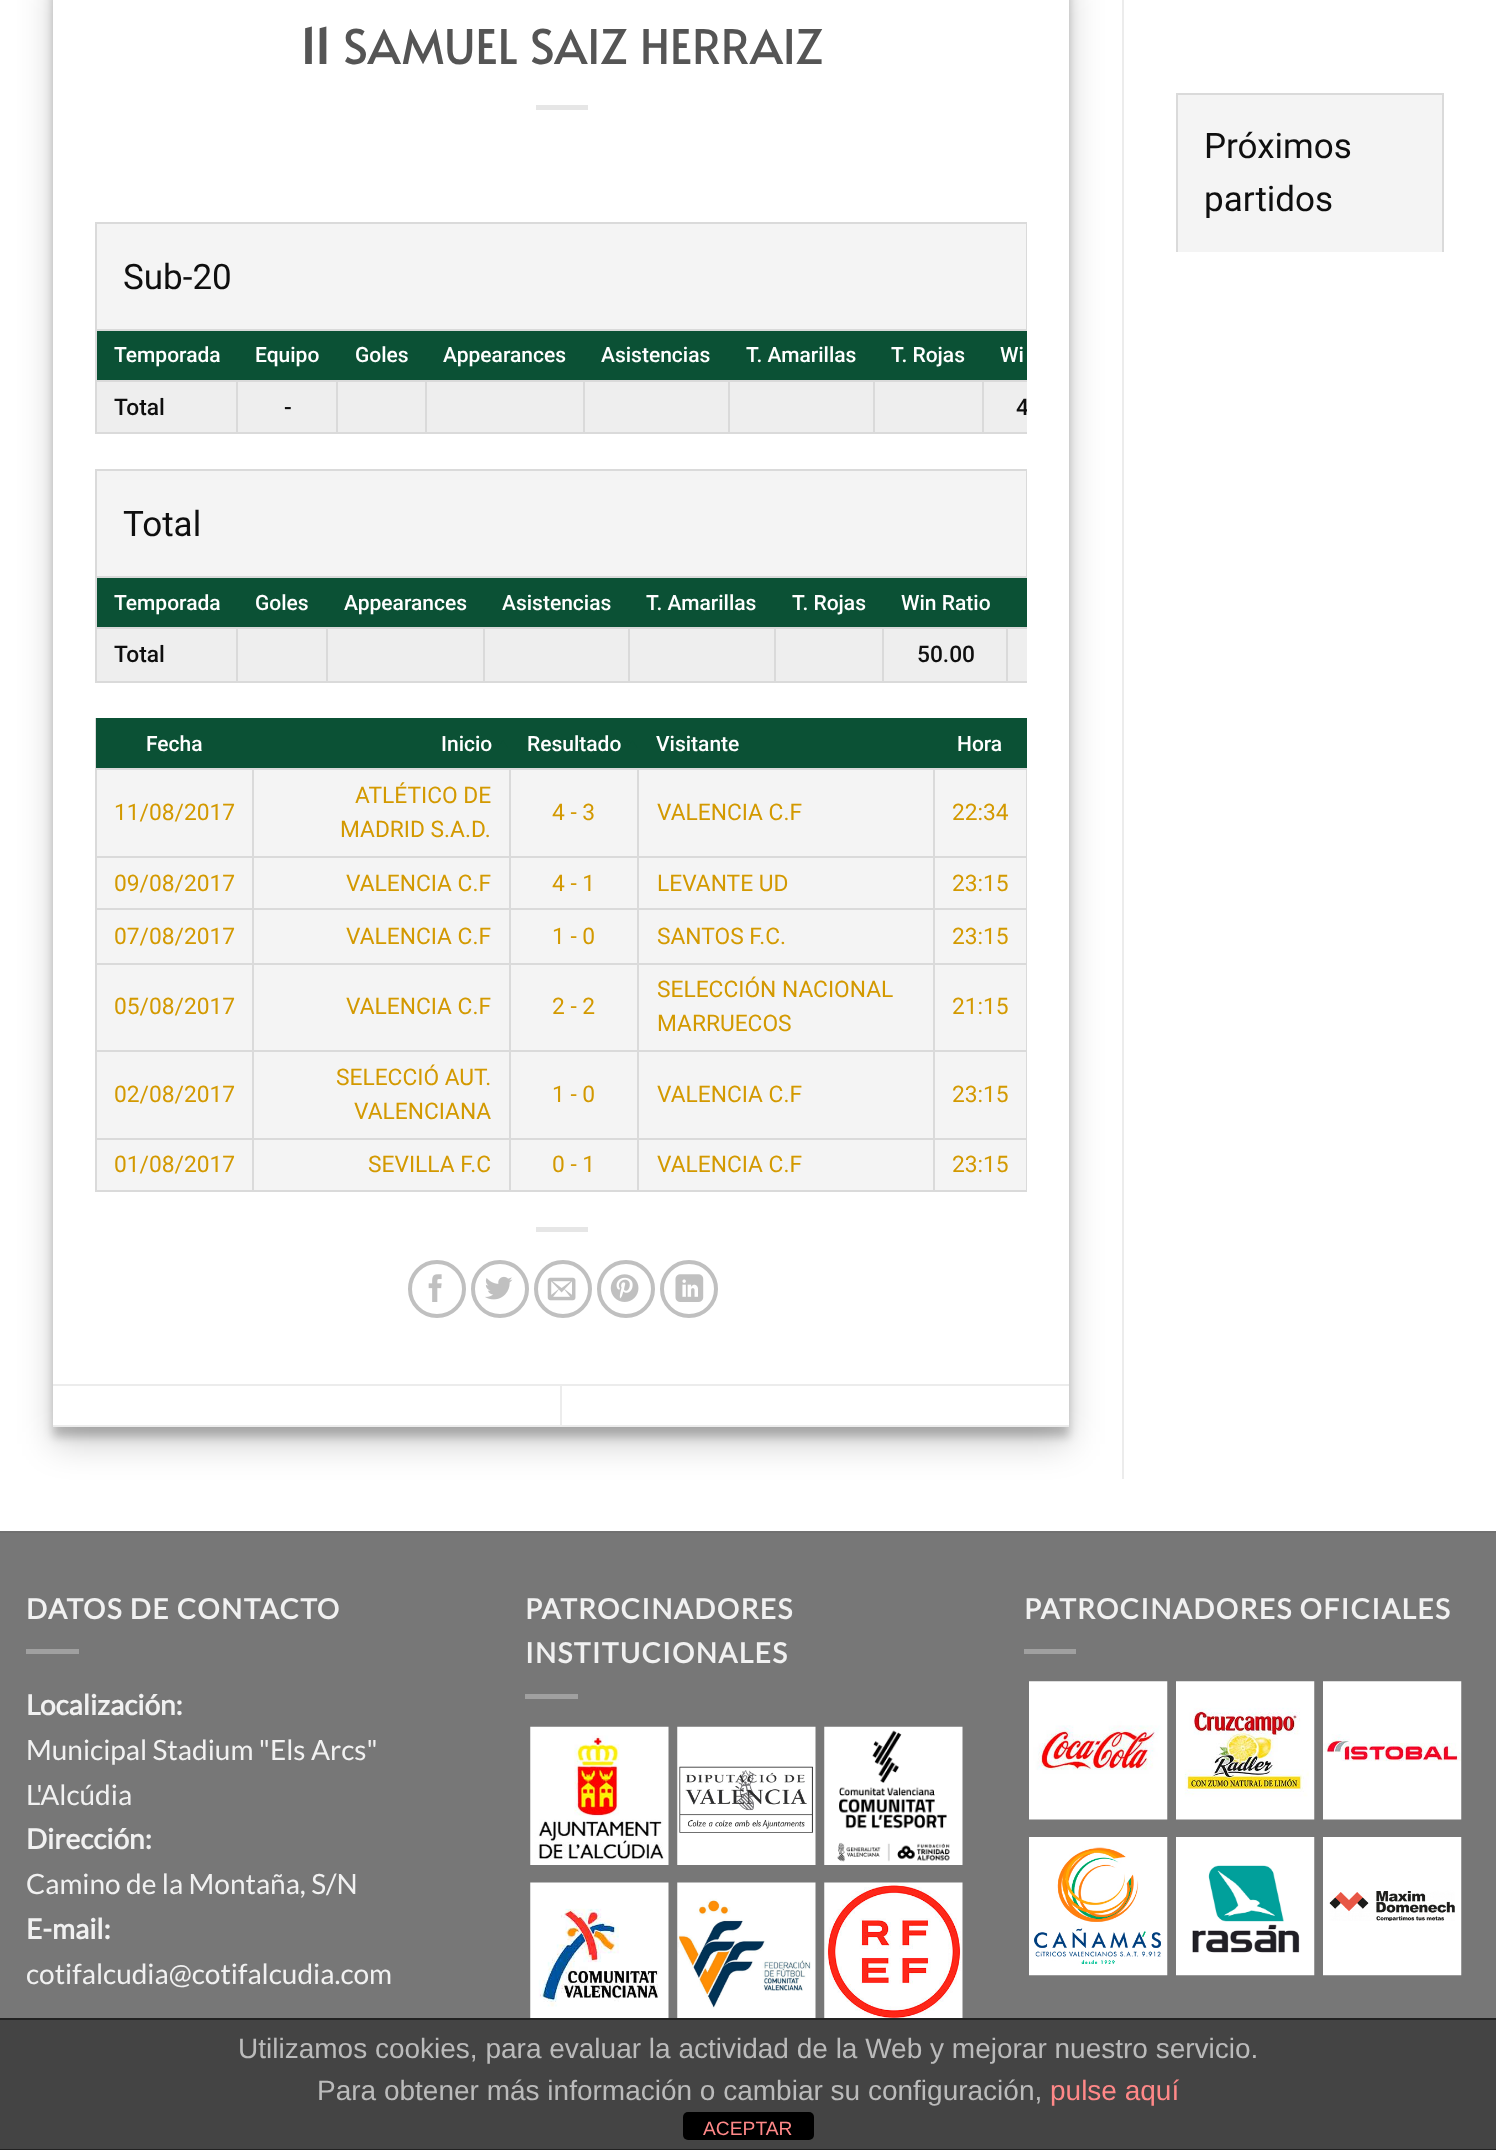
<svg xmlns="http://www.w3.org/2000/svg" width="1496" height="2150">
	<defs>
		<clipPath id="clip1"><path d="M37 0H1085V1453H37ZM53-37H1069V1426H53Z" clip-rule="evenodd" /></clipPath>
		<clipPath id="clip2"><path d="M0 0H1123V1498H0ZM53-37H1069V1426H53Z" clip-rule="evenodd" /></clipPath>
		<clipPath id="clip3"><rect x="95" y="329" width="932" height="105" /></clipPath>
	</defs>
	<rect width="100%" height="100%" fill="#FFFFFF" />
	<g clip-path="url(#clip1)">
		<rect x="53" y="-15" width="1016" height="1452" fill="#000000" fill-opacity="0.22" filter="blur(5px)" />
	</g>
	<g clip-path="url(#clip2)">
		<rect x="53" y="-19" width="1016" height="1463" fill="#000000" fill-opacity="0.19" filter="blur(17.5px)" />
	</g>
	<text x="299" y="64" font-family="Alata" font-size="47.6" font-weight="700" fill="#555555">11</text>
	<text x="343" y="64" font-family="Alata" font-size="47.6" fill="#555555">SAMUEL SAIZ HERRAIZ</text>
	<rect x="536" y="105" width="52" height="5" fill="#E6E6E6" />
	<rect x="97" y="224" width="929" height="105" fill="#F4F4F4" />
	<rect x="95" y="222" width="932" height="2" fill="#DADADA" />
	<rect x="1026" y="222" width="1" height="107" fill="#DADADA" />
	<rect x="95" y="222" width="2" height="107" fill="#DADADA" />
	<text x="123" y="289" font-family="Roboto" font-size="35" fill="#0F0F0F">Sub-20</text>
	<rect x="95" y="329" width="932" height="2" fill="#DADADA" />
	<rect x="95" y="432" width="932" height="2" fill="#DADADA" />
	<rect x="95" y="329" width="2" height="105" fill="#DADADA" />
	<rect x="97" y="331" width="930" height="49" fill="#0B5135" />
	<g font-family="Roboto" font-size="21" font-weight="500" fill="#FFFFFF">
		<text x="114" y="362">Temporada</text>
		<text x="255" y="362">Equipo</text>
		<text x="355" y="362">Goles</text>
		<text x="443" y="362">Appearances</text>
		<text x="601" y="362">Asistencias</text>
		<text x="746" y="362">T. Amarillas</text>
		<text x="891" y="362">T. Rojas</text>
		<text x="1000" y="362">Wi</text>
	</g>
	<rect x="97" y="382" width="139" height="50" fill="#EEEEEE" />
	<rect x="982" y="380" width="45" height="2" fill="#DADADA" />
	<rect x="982" y="380" width="2" height="54" fill="#DADADA" />
	<rect x="873" y="380" width="111" height="2" fill="#DADADA" />
	<rect x="873" y="380" width="2" height="54" fill="#DADADA" />
	<rect x="728" y="380" width="147" height="2" fill="#DADADA" />
	<rect x="728" y="380" width="2" height="54" fill="#DADADA" />
	<rect x="583" y="380" width="147" height="2" fill="#DADADA" />
	<rect x="583" y="380" width="2" height="54" fill="#DADADA" />
	<rect x="425" y="380" width="160" height="2" fill="#DADADA" />
	<rect x="425" y="380" width="2" height="54" fill="#DADADA" />
	<rect x="336" y="380" width="91" height="2" fill="#DADADA" />
	<rect x="336" y="380" width="2" height="54" fill="#DADADA" />
	<rect x="236" y="380" width="102" height="2" fill="#DADADA" />
	<rect x="236" y="380" width="2" height="54" fill="#DADADA" />
	<rect x="95" y="380" width="143" height="2" fill="#DADADA" />
	<text x="114" y="415" font-family="Roboto" font-size="22.75" font-weight="500" fill="#0F0F0F">Total</text>
	<rect x="238" y="382" width="98" height="50" fill="#EEEEEE" />
	<text x="284" y="415" font-family="Roboto" font-size="22.75" font-weight="500" fill="#0F0F0F">-</text>
	<rect x="338" y="382" width="87" height="50" fill="#EEEEEE" />
	<rect x="427" y="382" width="156" height="50" fill="#EEEEEE" />
	<rect x="585" y="382" width="143" height="50" fill="#EEEEEE" />
	<rect x="730" y="382" width="143" height="50" fill="#EEEEEE" />
	<rect x="875" y="382" width="107" height="50" fill="#EEEEEE" />
	<rect x="984" y="382" width="43" height="50" fill="#EEEEEE" />
	<g clip-path="url(#clip3)">
		<text x="1016" y="415" font-family="Roboto" font-size="22.75" font-weight="500" fill="#0F0F0F">4</text>
	</g>
	<rect x="97" y="471" width="929" height="105" fill="#F4F4F4" />
	<rect x="95" y="469" width="932" height="2" fill="#DADADA" />
	<rect x="1026" y="469" width="1" height="107" fill="#DADADA" />
	<rect x="95" y="469" width="2" height="107" fill="#DADADA" />
	<text x="123" y="536" font-family="Roboto" font-size="35" fill="#0F0F0F">Total</text>
	<rect x="95" y="576" width="932" height="2" fill="#DADADA" />
	<rect x="95" y="681" width="932" height="2" fill="#DADADA" />
	<rect x="95" y="576" width="2" height="107" fill="#DADADA" />
	<rect x="97" y="578" width="930" height="49" fill="#0B5135" />
	<g font-family="Roboto" font-size="21" font-weight="500" fill="#FFFFFF">
		<text x="114" y="610">Temporada</text>
		<text x="255" y="610">Goles</text>
		<text x="344" y="610">Appearances</text>
		<text x="502" y="610">Asistencias</text>
		<text x="646" y="610">T. Amarillas</text>
		<text x="792" y="610">T. Rojas</text>
		<text x="901" y="610">Win Ratio</text>
	</g>
	<rect x="97" y="629" width="139" height="52" fill="#EEEEEE" />
	<rect x="1006" y="627" width="21" height="2" fill="#DADADA" />
	<rect x="1006" y="627" width="2" height="56" fill="#DADADA" />
	<rect x="882" y="627" width="126" height="2" fill="#DADADA" />
	<rect x="882" y="627" width="2" height="56" fill="#DADADA" />
	<rect x="774" y="627" width="110" height="2" fill="#DADADA" />
	<rect x="774" y="627" width="2" height="56" fill="#DADADA" />
	<rect x="628" y="627" width="147" height="2" fill="#DADADA" />
	<rect x="628" y="627" width="2" height="56" fill="#DADADA" />
	<rect x="483" y="627" width="147" height="2" fill="#DADADA" />
	<rect x="483" y="627" width="2" height="56" fill="#DADADA" />
	<rect x="326" y="627" width="159" height="2" fill="#DADADA" />
	<rect x="326" y="627" width="2" height="56" fill="#DADADA" />
	<rect x="236" y="627" width="91" height="2" fill="#DADADA" />
	<rect x="236" y="627" width="2" height="56" fill="#DADADA" />
	<rect x="95" y="627" width="143" height="2" fill="#DADADA" />
	<text x="114" y="662" font-family="Roboto" font-size="22.75" font-weight="500" fill="#0F0F0F">Total</text>
	<rect x="238" y="629" width="88" height="52" fill="#EEEEEE" />
	<rect x="328" y="629" width="155" height="52" fill="#EEEEEE" />
	<rect x="485" y="629" width="143" height="52" fill="#EEEEEE" />
	<rect x="630" y="629" width="144" height="52" fill="#EEEEEE" />
	<rect x="776" y="629" width="106" height="52" fill="#EEEEEE" />
	<rect x="884" y="629" width="122" height="52" fill="#EEEEEE" />
	<text x="917" y="662" font-family="Roboto" font-size="22.75" font-weight="500" fill="#0F0F0F">50.00</text>
	<rect x="1008" y="629" width="19" height="52" fill="#EEEEEE" />
	<rect x="97" y="770" width="929" height="420" fill="#F4F4F4" />
	<rect x="1026" y="770" width="1" height="422" fill="#DADADA" />
	<rect x="95" y="1190" width="932" height="2" fill="#DADADA" />
	<rect x="95" y="718" width="2" height="474" fill="#DADADA" />
	<rect x="96" y="718" width="931" height="50" fill="#0B5135" />
	<g font-family="Roboto" font-size="21" font-weight="500" fill="#FFFFFF">
		<text x="146" y="751">Fecha</text>
		<text x="441" y="751">Inicio</text>
	</g>
	<path d="M500 740.5H489.5L494.5 748ZM497.5 748H508L503 740.5Z" fill="#0B5135" />
	<text x="527" y="751" font-family="Roboto" font-size="21" font-weight="500" fill="#FFFFFF">Resultado</text>
	<path d="M629.5 740.5H619L624 748ZM627 748H637.5L632.5 740.5Z" fill="#0B5135" />
	<g font-family="Roboto" font-size="21" font-weight="500" fill="#FFFFFF">
		<text x="656" y="751">Visitante</text>
		<text x="957" y="751">Hora</text>
	</g>
	<rect x="933" y="768" width="94" height="2" fill="#DADADA" />
	<rect x="933" y="856" width="94" height="2" fill="#DADADA" />
	<rect x="933" y="908" width="94" height="2" fill="#DADADA" />
	<rect x="933" y="963" width="94" height="2" fill="#DADADA" />
	<rect x="933" y="1050" width="94" height="2" fill="#DADADA" />
	<rect x="933" y="1138" width="94" height="2" fill="#DADADA" />
	<rect x="933" y="1138" width="2" height="54" fill="#DADADA" />
	<rect x="637" y="1138" width="298" height="2" fill="#DADADA" />
	<rect x="933" y="1050" width="2" height="89" fill="#DADADA" />
	<rect x="637" y="1050" width="298" height="2" fill="#DADADA" />
	<rect x="933" y="963" width="2" height="89" fill="#DADADA" />
	<rect x="637" y="963" width="298" height="2" fill="#DADADA" />
	<rect x="933" y="908" width="2" height="56" fill="#DADADA" />
	<rect x="637" y="908" width="298" height="2" fill="#DADADA" />
	<rect x="933" y="856" width="2" height="54" fill="#DADADA" />
	<rect x="637" y="856" width="298" height="2" fill="#DADADA" />
	<rect x="933" y="768" width="2" height="90" fill="#DADADA" />
	<rect x="637" y="768" width="298" height="2" fill="#DADADA" />
	<rect x="637" y="1138" width="2" height="54" fill="#DADADA" />
	<rect x="509" y="1138" width="130" height="2" fill="#DADADA" />
	<rect x="637" y="1050" width="2" height="89" fill="#DADADA" />
	<rect x="509" y="1050" width="130" height="2" fill="#DADADA" />
	<rect x="637" y="963" width="2" height="89" fill="#DADADA" />
	<rect x="509" y="963" width="130" height="2" fill="#DADADA" />
	<rect x="637" y="908" width="2" height="56" fill="#DADADA" />
	<rect x="509" y="908" width="130" height="2" fill="#DADADA" />
	<rect x="637" y="856" width="2" height="54" fill="#DADADA" />
	<rect x="509" y="856" width="130" height="2" fill="#DADADA" />
	<rect x="637" y="768" width="2" height="90" fill="#DADADA" />
	<rect x="509" y="768" width="130" height="2" fill="#DADADA" />
	<rect x="509" y="1138" width="2" height="54" fill="#DADADA" />
	<rect x="252" y="1138" width="259" height="2" fill="#DADADA" />
	<rect x="509" y="1050" width="2" height="89" fill="#DADADA" />
	<rect x="252" y="1050" width="259" height="2" fill="#DADADA" />
	<rect x="509" y="963" width="2" height="89" fill="#DADADA" />
	<rect x="252" y="963" width="259" height="2" fill="#DADADA" />
	<rect x="509" y="908" width="2" height="56" fill="#DADADA" />
	<rect x="252" y="908" width="259" height="2" fill="#DADADA" />
	<rect x="509" y="856" width="2" height="54" fill="#DADADA" />
	<rect x="252" y="856" width="259" height="2" fill="#DADADA" />
	<rect x="509" y="768" width="2" height="90" fill="#DADADA" />
	<rect x="252" y="768" width="259" height="2" fill="#DADADA" />
	<rect x="252" y="1138" width="2" height="54" fill="#DADADA" />
	<rect x="95" y="1138" width="159" height="2" fill="#DADADA" />
	<rect x="252" y="1050" width="2" height="89" fill="#DADADA" />
	<rect x="95" y="1050" width="159" height="2" fill="#DADADA" />
	<rect x="252" y="963" width="2" height="89" fill="#DADADA" />
	<rect x="95" y="963" width="159" height="2" fill="#DADADA" />
	<rect x="252" y="908" width="2" height="56" fill="#DADADA" />
	<rect x="95" y="908" width="159" height="2" fill="#DADADA" />
	<rect x="252" y="856" width="2" height="54" fill="#DADADA" />
	<rect x="95" y="856" width="159" height="2" fill="#DADADA" />
	<rect x="252" y="768" width="2" height="90" fill="#DADADA" />
	<rect x="95" y="768" width="159" height="2" fill="#DADADA" />
	<g font-family="Roboto" font-size="22.75" fill="#D39900">
		<text x="114" y="820">11/08/2017</text>
		<text x="355" y="803">ATLÉTICO DE</text>
		<text x="340" y="837">MADRID S.A.D.</text>
		<text x="552" y="820">4 - 3</text>
		<text x="657" y="820">VALENCIA C.F</text>
		<text x="952" y="820">22:34</text>
		<text x="114" y="891">09/08/2017</text>
		<text x="346" y="891">VALENCIA C.F</text>
		<text x="552" y="891">4 - 1</text>
		<text x="657" y="891">LEVANTE UD</text>
		<text x="952" y="891">23:15</text>
		<text x="114" y="944">07/08/2017</text>
		<text x="346" y="944">VALENCIA C.F</text>
		<text x="552" y="944">1 - 0</text>
		<text x="657" y="944">SANTOS F.C.</text>
		<text x="952" y="944">23:15</text>
		<text x="114" y="1014">05/08/2017</text>
		<text x="346" y="1014">VALENCIA C.F</text>
		<text x="552" y="1014">2 - 2</text>
		<text x="657" y="997">SELECCIÓN NACIONAL</text>
		<text x="657" y="1031">MARRUECOS</text>
		<text x="952" y="1014">21:15</text>
		<text x="114" y="1102">02/08/2017</text>
		<text x="336" y="1085">SELECCIÓ AUT.</text>
		<text x="354" y="1119">VALENCIANA</text>
		<text x="552" y="1102">1 - 0</text>
		<text x="657" y="1102">VALENCIA C.F</text>
		<text x="952" y="1102">23:15</text>
		<text x="114" y="1172">01/08/2017</text>
		<text x="368" y="1172">SEVILLA F.C</text>
		<text x="552" y="1172">0 - 1</text>
		<text x="657" y="1172">VALENCIA C.F</text>
		<text x="952" y="1172">23:15</text>
	</g>
	<rect x="536" y="1227" width="52" height="5" fill="#E6E6E6" />
	<circle cx="437" cy="1289" r="27" fill="none" stroke="#C0C0C0" stroke-width="4" />
	<image x="428" y="1274" width="14" height="28" href="assets/img1.png" />
	<circle cx="500" cy="1289" r="27" fill="none" stroke="#C0C0C0" stroke-width="4" />
	<image x="485" y="1276" width="28" height="24" href="assets/img2.png" />
	<circle cx="563" cy="1289" r="27" fill="none" stroke="#C0C0C0" stroke-width="4" />
	<image x="547" y="1277" width="29" height="24" href="assets/img3.png" />
	<circle cx="626" cy="1289" r="27" fill="none" stroke="#C0C0C0" stroke-width="4" />
	<image x="610" y="1274" width="29" height="28" href="assets/img4.png" />
	<circle cx="689" cy="1289" r="27" fill="none" stroke="#C0C0C0" stroke-width="4" />
	<image x="675" y="1274" width="29" height="28" href="assets/img5.png" />
	<rect x="53" y="1384" width="1016" height="2" fill="#ECECEC" />
	<rect x="53" y="1425" width="1016" height="2" fill="#ECECEC" />
	<rect x="560" y="1386" width="2" height="39" fill="#ECECEC" />
	<rect x="1122" y="0" width="2" height="1479" fill="#ECECEC" />
	<rect x="1178" y="95" width="264" height="157" fill="#F4F4F4" />
	<rect x="1176" y="93" width="268" height="2" fill="#DADADA" />
	<rect x="1442" y="93" width="2" height="159" fill="#DADADA" />
	<rect x="1176" y="93" width="2" height="159" fill="#DADADA" />
	<g font-family="Roboto" font-size="35" fill="#0F0F0F">
		<text x="1204" y="158">Próximos</text>
		<text x="1204" y="211">partidos</text>
	</g>
	<rect x="0" y="1533" width="1496" height="485" fill="#777777" />
	<rect x="0" y="1531" width="1496" height="2" fill="#717171" />
	<text x="26" y="1619" font-family="Lato" font-size="28" font-weight="700" letter-spacing="1.4" fill="#F1F1F1">DATOS DE CONTACTO</text>
	<rect x="26" y="1649" width="53" height="5" fill="#A0A0A0" />
	<text x="26" y="1715" font-family="Lato" font-size="28" font-weight="700" fill="#F1F1F1">Localización:</text>
	<g font-family="Lato" font-size="28" fill="#F1F1F1">
		<text x="26" y="1760">Municipal Stadium "Els Arcs"</text>
		<text x="26" y="1805">L'Alcúdia</text>
	</g>
	<text x="26" y="1849" font-family="Lato" font-size="28" font-weight="700" fill="#F1F1F1">Dirección:</text>
	<text x="26" y="1894" font-family="Lato" font-size="28" fill="#F1F1F1">Camino de la Montaña, S/N</text>
	<text x="26" y="1939" font-family="Lato" font-size="28" font-weight="700" fill="#F1F1F1">E-mail:</text>
	<text x="26" y="1984" font-family="Lato" font-size="28" fill="#F1F1F1">cotifalcudia@cotifalcudia.com</text>
	<g font-family="Lato" font-size="28" font-weight="700" letter-spacing="1.4" fill="#F1F1F1">
		<text x="525" y="1619">PATROCINADORES</text>
		<text x="525" y="1663">INSTITUCIONALES</text>
	</g>
	<rect x="525" y="1694" width="53" height="5" fill="#A0A0A0" />
	<image x="530" y="1726" width="139" height="139" href="assets/img6.png" />
	<image x="677" y="1726" width="139" height="139" href="assets/img7.png" />
	<image x="824" y="1726" width="139" height="139" href="assets/img8.png" />
	<image x="530" y="1882" width="139" height="136" href="assets/img9.png" />
	<image x="677" y="1882" width="139" height="136" href="assets/img10.png" />
	<image x="824" y="1882" width="139" height="136" href="assets/img11.png" />
	<text x="1024" y="1619" font-family="Lato" font-size="28" font-weight="700" letter-spacing="1.4" fill="#F1F1F1">PATROCINADORES OFICIALES</text>
	<rect x="1024" y="1649" width="52" height="5" fill="#A0A0A0" />
	<image x="1029" y="1681" width="139" height="139" href="assets/img12.png" />
	<image x="1176" y="1681" width="139" height="139" href="assets/img13.png" />
	<image x="1323" y="1681" width="139" height="139" href="assets/img14.png" />
	<image x="1029" y="1837" width="139" height="139" href="assets/img15.png" />
	<image x="1176" y="1837" width="139" height="139" href="assets/img16.png" />
	<image x="1323" y="1837" width="139" height="139" href="assets/img17.png" />
	<rect x="0" y="2020" width="1496" height="129" fill="#444444" />
	<rect x="0" y="2018" width="1496" height="2" fill="#222222" />
	<rect x="0" y="2149" width="1496" height="1" fill="#222222" />
	<g font-family="Liberation Sans" font-size="28" fill="#BBBBBB">
		<text x="238" y="2058">Utilizamos cookies, para evaluar la actividad de la Web y mejorar nuestro servicio.</text>
		<text x="317" y="2100">Para obtener más información o cambiar su configuración,</text>
	</g>
	<text x="1050" y="2100" font-family="Liberation Sans" font-size="28" fill="#FF8888">pulse aquí</text>
	<rect x="683" y="2112" width="131" height="28" rx="5" fill="#000000" />
	<text x="703" y="2135" font-family="Liberation Sans" font-size="19.25" fill="#FF8888">ACEPTAR</text>
</svg>
